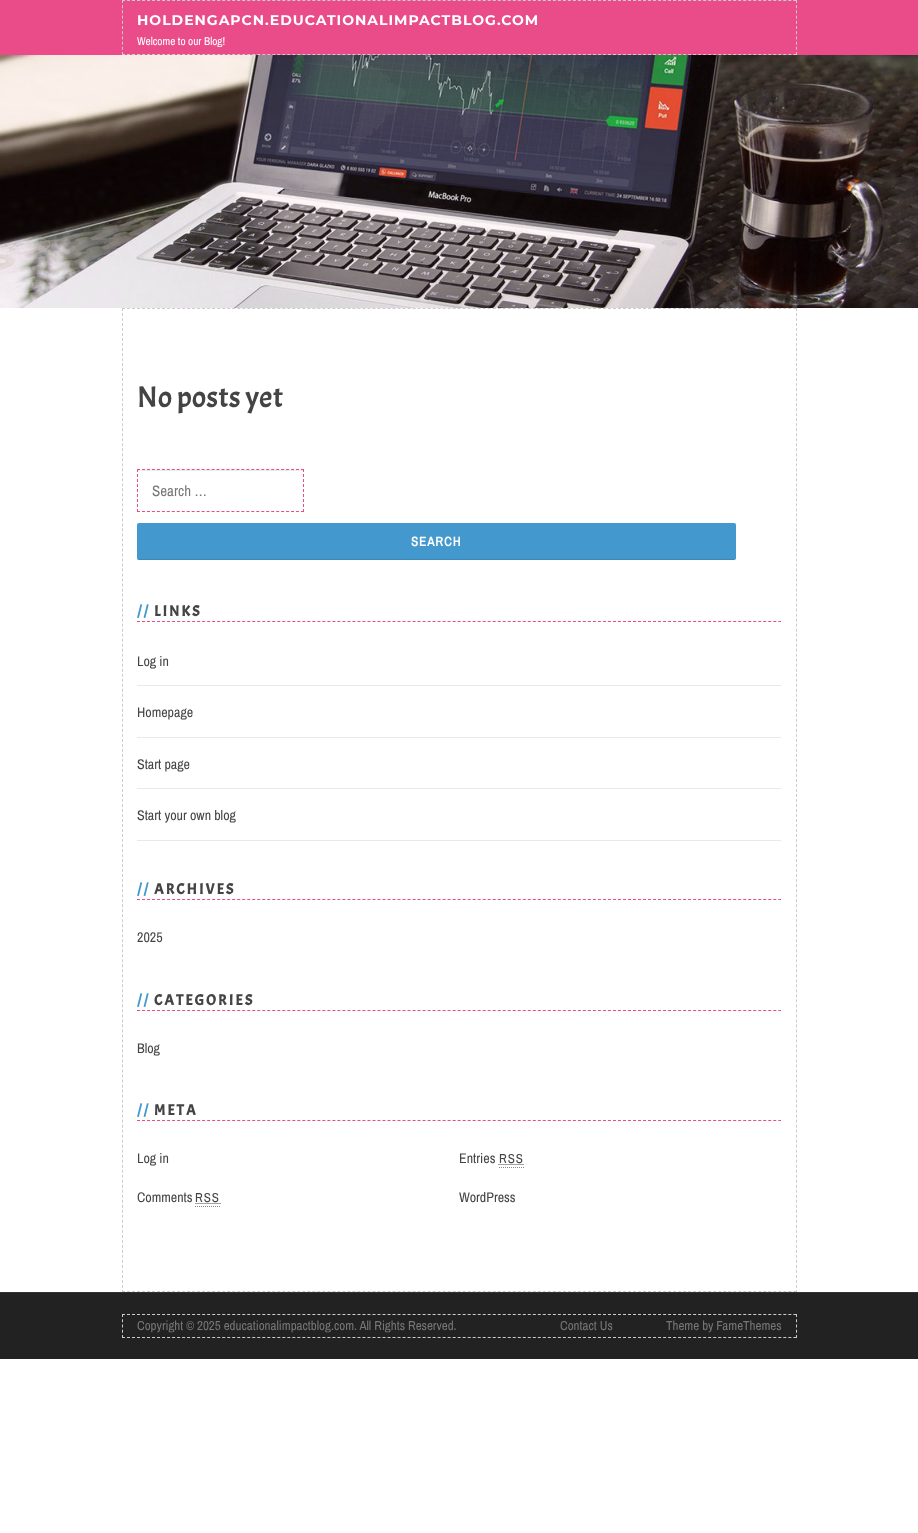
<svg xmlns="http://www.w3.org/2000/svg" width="918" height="1533">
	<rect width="100%" height="100%" fill="#FFFFFF" />
	<rect x="0" y="0" width="918" height="55" fill="#EA4C89" />
	<path d="M122 .5H797" fill="none" stroke="#CCCCCC" stroke-dasharray="3 2.01" />
	<path d="M796.5 0V55" fill="none" stroke="#CCCCCC" stroke-dasharray="3 2.2" />
	<path d="M122 54.5H797" fill="none" stroke="#CCCCCC" stroke-dasharray="3 2.01" />
	<path d="M122.5 0V55" fill="none" stroke="#CCCCCC" stroke-dasharray="3 2.2" />
	<text x="137" y="25" font-family="Montserrat" font-size="14" font-weight="700" letter-spacing="1" fill="#FFFFFF">HOLDENGAPCN.EDUCATIONALIMPACTBLOG.COM</text>
	<text x="137" y="45" font-family="Archivo Narrow" font-size="11.25" fill="#FFFFFF">Welcome to our Blog!</text>
	<image x="0" y="55" width="918" height="253" href="assets/img1.png" />
	<path d="M122 308.5H797" fill="none" stroke="#CCCCCC" stroke-dasharray="3 2.01" />
	<path d="M796.5 308V1292" fill="none" stroke="#CCCCCC" stroke-dasharray="3 2.01" />
	<path d="M122 1291.5H797" fill="none" stroke="#CCCCCC" stroke-dasharray="3 2.01" />
	<path d="M122.5 308V1292" fill="none" stroke="#CCCCCC" stroke-dasharray="3 2.01" />
	<text x="137" y="407" font-family="Acme" font-size="30" fill="#444444">No posts yet</text>
	<rect x="138" y="470" width="165" height="1" fill="#EBEBEB" />
	<path d="M137 469.5H304" fill="none" stroke="#EA4C89" stroke-dasharray="3 1.97" />
	<path d="M303.5 469V512" fill="none" stroke="#EA4C89" stroke-dasharray="3 2" />
	<path d="M137 511.5H304" fill="none" stroke="#EA4C89" stroke-dasharray="3 1.97" />
	<path d="M137.5 469V512" fill="none" stroke="#EA4C89" stroke-dasharray="3 2" />
	<text x="152" y="496" font-family="Archivo Narrow" font-size="15" fill="#777777">Search …</text>
	<rect x="137" y="523" width="599" height="37" rx="2" fill="#4399CD" />
	<path d="M137 557C137 558 137 560 139 560H734L736 559V557C736 558 735 559 734 559H139C138 559 137 558 137 557Z" fill="#000000" fill-opacity="0.1" />
	<text x="411" y="546" font-family="Archivo Narrow" font-size="13" font-weight="700" letter-spacing="1" fill="#FFFFFF">SEARCH</text>
	<path d="M137 621.5H781" fill="none" stroke="#EA4C89" stroke-dasharray="3 2.01" />
	<text x="137" y="616" font-family="Acme" font-size="15" font-weight="700" letter-spacing="2" fill="#4399CD">//</text>
	<text x="154" y="616" font-family="Acme" font-size="15" font-weight="700" letter-spacing="2" fill="#444444">LINKS</text>
	<rect x="137" y="685" width="644" height="1" fill="#E9E9E9" />
	<text x="137" y="666" font-family="Archivo Narrow" font-size="14" fill="#444444">Log in</text>
	<rect x="137" y="737" width="644" height="1" fill="#E9E9E9" />
	<text x="137" y="717" font-family="Archivo Narrow" font-size="14" fill="#444444">Homepage</text>
	<rect x="137" y="788" width="644" height="1" fill="#E9E9E9" />
	<text x="137" y="769" font-family="Archivo Narrow" font-size="14" fill="#444444">Start page</text>
	<rect x="137" y="840" width="644" height="1" fill="#E9E9E9" />
	<text x="137" y="820" font-family="Archivo Narrow" font-size="14" fill="#444444">Start your own blog</text>
	<path d="M137 899.5H781" fill="none" stroke="#EA4C89" stroke-dasharray="3 2.01" />
	<text x="137" y="894" font-family="Acme" font-size="15" font-weight="700" letter-spacing="2" fill="#4399CD">//</text>
	<text x="154" y="894" font-family="Acme" font-size="15" font-weight="700" letter-spacing="2" fill="#444444">ARCHIVES</text>
	<text x="137" y="942" font-family="Archivo Narrow" font-size="14" fill="#444444">2025</text>
	<path d="M137 1010.5H781" fill="none" stroke="#EA4C89" stroke-dasharray="3 2.01" />
	<text x="137" y="1005" font-family="Acme" font-size="15" font-weight="700" letter-spacing="2" fill="#4399CD">//</text>
	<text x="154" y="1005" font-family="Acme" font-size="15" font-weight="700" letter-spacing="2" fill="#444444">CATEGORIES</text>
	<text x="137" y="1053" font-family="Archivo Narrow" font-size="14" fill="#444444">Blog</text>
	<path d="M137 1120.5H781" fill="none" stroke="#EA4C89" stroke-dasharray="3 2.01" />
	<text x="137" y="1115" font-family="Acme" font-size="15" font-weight="700" letter-spacing="2" fill="#4399CD">//</text>
	<text x="154" y="1115" font-family="Acme" font-size="15" font-weight="700" letter-spacing="2" fill="#444444">META</text>
	<g font-family="Archivo Narrow" font-size="14" fill="#444444">
		<text x="137" y="1163">Log in</text>
		<text x="459" y="1163">Entries</text>
	</g>
	<text x="499" y="1163" font-family="Archivo Narrow" font-size="13" letter-spacing="1" fill="#444444">RSS</text>
	<path d="M499 1167.5H524" fill="none" stroke="#818A91" stroke-dasharray="1 1" />
	<path d="M498.5 1164.5H524" fill="none" stroke="#444444" stroke-dasharray="1 1" />
	<text x="137" y="1202" font-family="Archivo Narrow" font-size="14" fill="#444444">Comments</text>
	<text x="195" y="1202" font-family="Archivo Narrow" font-size="13" letter-spacing="1" fill="#444444">RSS</text>
	<path d="M195 1206.5H221" fill="none" stroke="#818A91" stroke-dasharray="1 1" />
	<path d="M195.5 1203.5H220.5" fill="none" stroke="#444444" stroke-dasharray="1 1" />
	<text x="459" y="1202" font-family="Archivo Narrow" font-size="14" fill="#444444">WordPress</text>
	<rect x="0" y="1293" width="918" height="66" fill="#222222" />
	<rect x="0" y="1292" width="918" height="1" fill="#333333" />
	<path d="M122 1314.5H797" fill="none" stroke="#CCCCCC" stroke-dasharray="3 2.01" />
	<path d="M796.5 1314V1338" fill="none" stroke="#CCCCCC" stroke-dasharray="3 2.25" />
	<path d="M122 1337.5H797" fill="none" stroke="#CCCCCC" stroke-dasharray="3 2.01" />
	<path d="M122.5 1314V1338" fill="none" stroke="#CCCCCC" stroke-dasharray="3 2.25" />
	<g font-family="Archivo Narrow" font-size="13" fill="#777777">
		<text x="137" y="1330">Copyright © 2025 educationalimpactblog.com. All Rights Reserved.</text>
		<text x="560" y="1330">Contact Us</text>
		<text x="666" y="1330">Theme by FameThemes</text>
	</g>
</svg>
